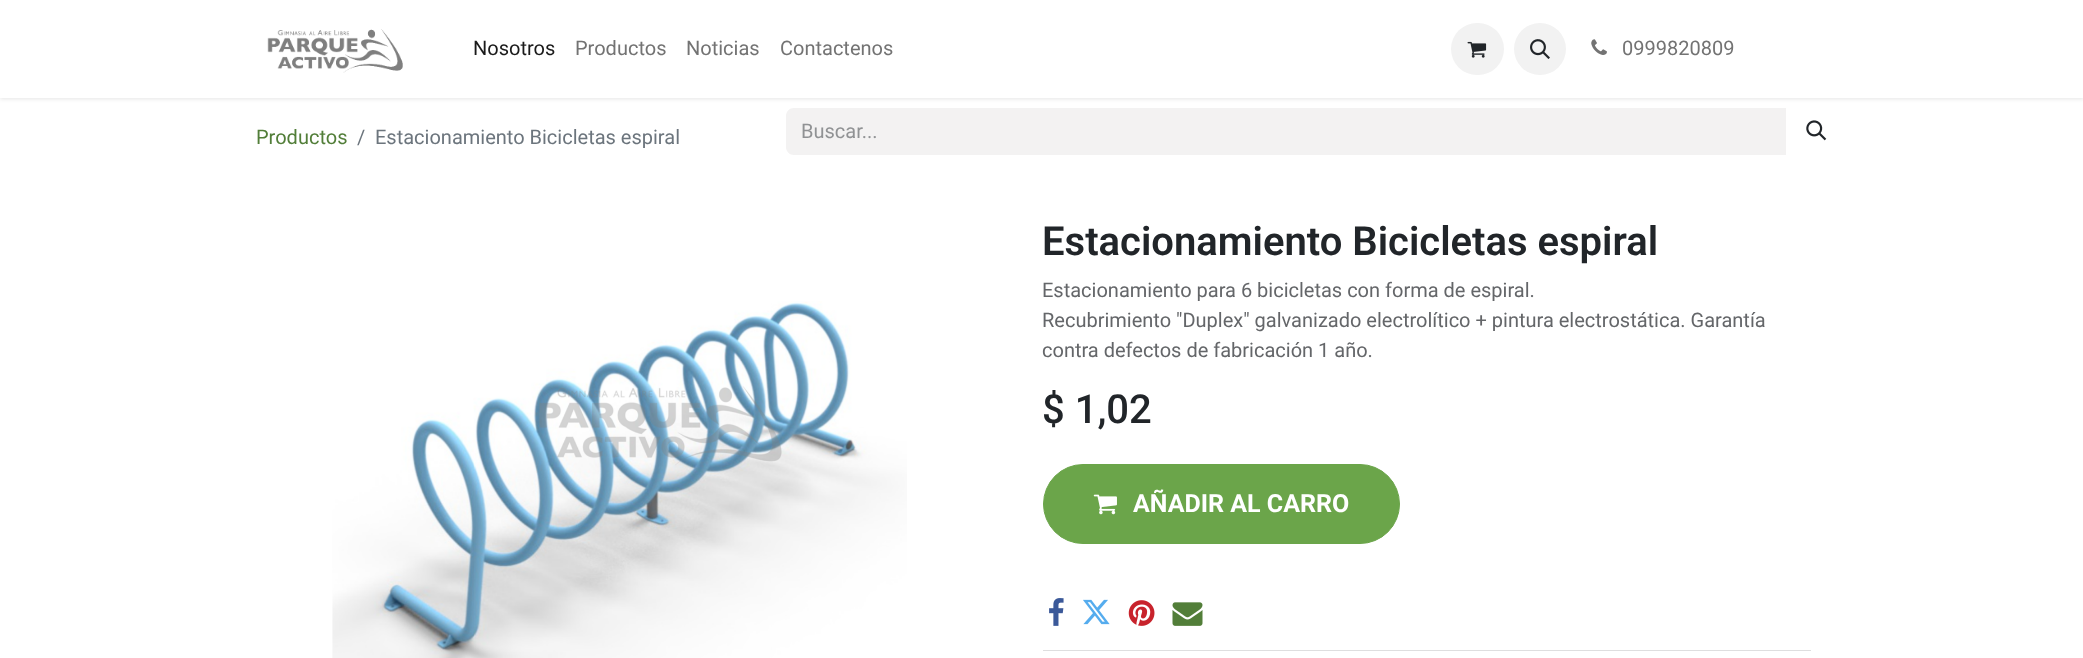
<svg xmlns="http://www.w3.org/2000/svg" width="2083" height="658">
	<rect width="100%" height="100%" fill="#FFFFFF" />
	<rect x="0" y="1" width="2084" height="98" fill="#000000" fill-opacity="0.1" filter="blur(2px)" />
	<rect x="0" y="0" width="2083" height="98" fill="#FFFFFF" />
	<image x="267" y="29" width="136" height="44" href="assets/img1.png" />
	<text x="473" y="55" font-family="Roboto" font-size="20" fill="#1A1A1A">Nosotros</text>
	<g font-family="Roboto" font-size="20" fill="#737373">
		<text x="575" y="55">Productos</text>
		<text x="686" y="55">Noticias</text>
		<text x="780" y="55">Contactenos</text>
	</g>
	<rect x="1451" y="23" width="53" height="52" rx="26" fill="#F2F2F2" />
	<image x="1467" y="41" width="20" height="17" href="assets/img2.png" />
	<circle cx="1540" cy="49" r="26" fill="#F2F2F2" />
	<image x="1530" y="39" width="20" height="20" href="assets/img3.png" />
	<image x="1591" y="39" width="16" height="16" href="assets/img4.png" />
	<text x="1622" y="55" font-family="Roboto" font-size="20" fill="#737373">0999820809</text>
	<text x="256" y="144" font-family="Roboto" font-size="20" fill="#527E39">Productos</text>
	<g font-family="Roboto" font-size="20" fill="#6C757D">
		<text x="357" y="144">/</text>
		<text x="375" y="144">Estacionamiento Bicicletas espiral</text>
	</g>
	<path d="M794 108H1786V155H794C789.5 155 786 151.5 786 147V116C786 111.5 789.5 108 794 108Z" fill="#F3F2F2" />
	<text x="801" y="138" font-family="Roboto" font-size="20" fill="#909294">Buscar...</text>
	<image x="1806" y="120" width="21" height="21" href="assets/img5.png" />
	<image x="332" y="301" width="575" height="357" href="assets/img6.png" />
	<text x="1042" y="255" font-family="Roboto" font-size="40" font-weight="600" fill="#212529">Estacionamiento Bicicletas espiral</text>
	<g font-family="Roboto" font-size="20" fill="#646669">
		<text x="1042" y="297">Estacionamiento para 6 bicicletas con forma de espiral.</text>
		<text x="1042" y="327">Recubrimiento "Duplex" galvanizado electrolítico + pintura electrostática. Garantía</text>
		<text x="1042" y="357">contra defectos de fabricación 1 año.</text>
	</g>
	<text x="1042" y="423" font-family="Roboto" font-size="40" font-weight="500" fill="#212529">$ 1,02</text>
	<rect x="1043.5" y="464.5" width="356" height="79" rx="39.5" fill="#6BA54A" stroke="#6BA54A" />
	<image x="1093" y="494" width="24" height="21" href="assets/img7.png" />
	<text x="1133" y="512" font-family="Roboto" font-size="25" font-weight="700" fill="#FFFFFF">AÑADIR AL CARRO</text>
	<image x="1049" y="598" width="15" height="28" href="assets/img8.png" />
	<image x="1083" y="599" width="27" height="26" href="assets/img9.png" />
	<image x="1128" y="600" width="27" height="26" href="assets/img10.png" />
	<image x="1172" y="602" width="31" height="24" href="assets/img11.png" />
	<rect x="1043" y="650" width="768" height="1" fill="#DEDEDF" />
</svg>
